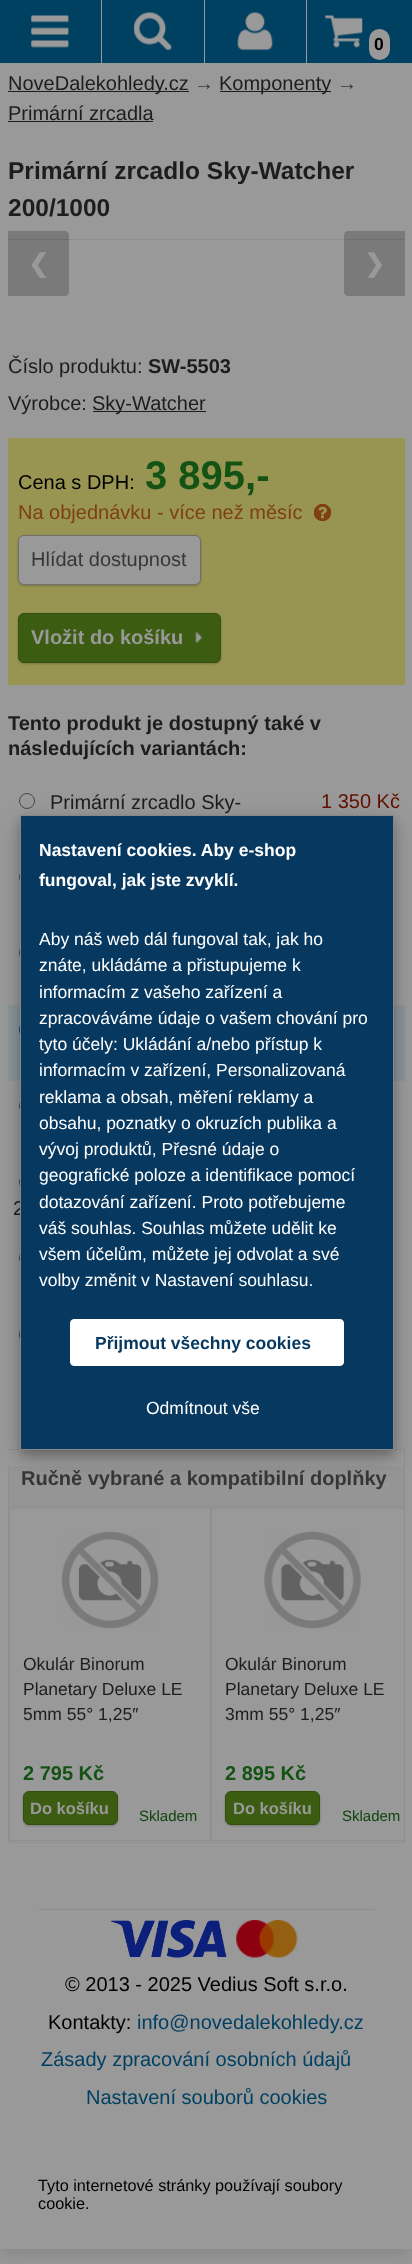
<svg xmlns="http://www.w3.org/2000/svg" width="412" height="2264">
	<defs>
		<clipPath id="clip1"><rect x="9" y="1508" width="395" height="333" /></clipPath>
	</defs>
	<rect width="100%" height="100%" fill="#999999" />
	<rect x="0" y="68" width="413" height="2186" fill="#333333" fill-opacity="0.2" filter="blur(9px)" />
	<rect x="0" y="0" width="412" height="63" fill="#004061" />
	<image x="31" y="15" width="39" height="33" href="assets/img1.png" />
	<rect x="101" y="0" width="1" height="63" fill="#999999" />
	<image x="133" y="12" width="39" height="39" href="assets/img2.png" />
	<rect x="204" y="0" width="1" height="63" fill="#999999" />
	<image x="237" y="12" width="36" height="39" href="assets/img3.png" />
	<rect x="306" y="0" width="1" height="63" fill="#999999" />
	<image x="325" y="15" width="38" height="33" href="assets/img4.png" />
	<rect x="369" y="29" width="21" height="31" rx="10.5" fill="#999999" />
	<text x="374" y="50" font-family="Liberation Sans" font-size="17.5" font-weight="700" fill="#000000">0</text>
	<rect x="0" y="63" width="412" height="2186" fill="#999999" />
	<rect x="8" y="91" width="181" height="1" fill="#1D1D1D" />
	<text x="8" y="90" font-family="Liberation Sans" font-size="20" fill="#1D1D1D">NoveDalekohledy.cz</text>
	<text x="194" y="90" font-family="Liberation Sans" font-size="20" fill="#373737">→</text>
	<rect x="220" y="91" width="111" height="1" fill="#1D1D1D" />
	<text x="219" y="90" font-family="Liberation Sans" font-size="20" fill="#1D1D1D">Komponenty</text>
	<text x="337" y="90" font-family="Liberation Sans" font-size="20" fill="#373737">→</text>
	<text x="8" y="120" font-family="Liberation Sans" font-size="20" fill="#1D1D1D">Primární zrcadla</text>
	<rect x="8" y="121" width="145" height="1" fill="#1D1D1D" />
	<rect x="8" y="239" width="397" height="1" fill="#8E8C8C" />
	<g font-family="Liberation Sans" font-size="24.5" font-weight="700" fill="#1D1D1D">
		<text x="8" y="179">Primární zrcadlo Sky-Watcher</text>
		<text x="8" y="216">200/1000</text>
	</g>
	<path d="M8 231H65C67 231 69 233 69 235V292C69 294 67 296 65 296H8Z" fill="#000000" fill-opacity="0.2" />
	<text x="28" y="272" font-family="DejaVu Sans" font-size="25" font-weight="700" fill="#999999">❮</text>
	<path d="M348 231H405V296H348C346 296 344 294 344 292V235C344 233 346 231 348 231Z" fill="#000000" fill-opacity="0.2" />
	<text x="364" y="272" font-family="DejaVu Sans" font-size="25" font-weight="700" fill="#999999">❯</text>
	<text x="8" y="373" font-family="Liberation Sans" font-size="20" fill="#1D1D1D">Číslo produktu:</text>
	<text x="148" y="373" font-family="Liberation Sans" font-size="20" font-weight="700" fill="#1D1D1D">SW-5503</text>
	<text x="8" y="410" font-family="Liberation Sans" font-size="20" fill="#1D1D1D">Výrobce:</text>
	<rect x="93" y="411" width="113" height="1" fill="#1D1D1D" />
	<text x="92" y="410" font-family="Liberation Sans" font-size="20" fill="#1D1D1D">Sky-Watcher</text>
	<rect x="8" y="438" width="397" height="247" fill="#989552" />
	<text x="18" y="489" font-family="Liberation Sans" font-size="20" fill="#000000">Cena s DPH:</text>
	<text x="145" y="489" font-family="Liberation Sans" font-size="40" font-weight="700" fill="#145314">3 895,-</text>
	<text x="18" y="519" font-family="Liberation Sans" font-size="20" fill="#7E3F12">Na objednávku - více než měsíc</text>
	<image x="314" y="504" width="17" height="17" href="assets/img5.png" />
	<rect x="18" y="536" width="183" height="50" rx="6" fill="#000000" fill-opacity="0.2" filter="blur(1px)" />
	<rect x="18.5" y="535.5" width="182" height="49" rx="5.5" fill="#999999" stroke="#6E6E6E" />
	<text x="31" y="566" font-family="Liberation Sans" font-size="20" fill="#373737">Hlídat dostupnost</text>
	<rect x="18" y="614" width="203" height="50" rx="6" fill="#000000" fill-opacity="0.2" filter="blur(1px)" />
	<rect x="18.5" y="613.5" width="202" height="49" rx="5.5" fill="#3C5C12" stroke="#324F0B" />
	<text x="31" y="644" font-family="Liberation Sans" font-size="20" font-weight="700" fill="#999999">Vložit do košíku</text>
	<image x="195" y="632" width="8" height="11" href="assets/img6.png" />
	<g font-family="Liberation Sans" font-size="20" font-weight="700" fill="#1D1D1D">
		<text x="8" y="730">Tento produkt je dostupný také v</text>
		<text x="8" y="755">následujících variantách:</text>
	</g>
	<circle cx="27" cy="801" r="7.5" fill="none" stroke="#474747" />
	<text x="50" y="809" font-family="Liberation Sans" font-size="20" fill="#1D1D1D">Primární zrcadlo Sky-</text>
	<text x="321" y="808" font-family="Liberation Sans" font-size="20" fill="#631000">1 350 Kč</text>
	<circle cx="27" cy="877" r="7.5" fill="none" stroke="#474747" />
	<circle cx="27" cy="953" r="7.5" fill="none" stroke="#474747" />
	<rect x="8" y="1005" width="397" height="76" fill="#8A9499" />
	<rect x="19.5" y="1021.5" width="15" height="16" rx="7.5" fill="none" stroke="#004699" />
	<circle cx="27" cy="1106" r="7.5" fill="none" stroke="#474747" />
	<circle cx="27" cy="1182" r="7.5" fill="none" stroke="#474747" />
	<text x="13" y="1215" font-family="Liberation Sans" font-size="20" fill="#1D1D1D">2</text>
	<circle cx="27" cy="1258" r="7.5" fill="none" stroke="#474747" />
	<rect x="19.5" y="1326.5" width="15" height="16" rx="7.5" fill="none" stroke="#474747" />
	<rect x="8.5" y="1449.5" width="396" height="393" fill="none" stroke="#8F8F8F" />
	<rect x="9" y="1466" width="395" height="42" fill="#959595" />
	<rect x="8" y="1450" width="1" height="16" fill="#989898" />
	<rect x="9" y="1506" width="395" height="1" fill="#8F8F8F" />
	<text x="21" y="1485" font-family="Liberation Sans" font-size="20" font-weight="700" fill="#373737">Ručně vybrané a kompatibilní doplňky</text>
	<rect x="9.5" y="1508.5" width="201" height="332" fill="none" stroke="#8F8F8F" />
	<image x="61" y="1531" width="98" height="98" href="assets/img7.png" />
	<g font-family="Liberation Sans" font-size="17.5" fill="#1D1D1D">
		<text x="23" y="1670">Okulár Binorum</text>
		<text x="23" y="1695">Planetary Deluxe LE</text>
		<text x="23" y="1720">5mm 55° 1,25″</text>
	</g>
	<text x="23" y="1780" font-family="Liberation Sans" font-size="20" font-weight="700" fill="#145314">2 795 Kč</text>
	<rect x="23" y="1793" width="95" height="33" rx="6" fill="#000000" fill-opacity="0.2" filter="blur(1px)" />
	<rect x="23.5" y="1791.5" width="94" height="33" rx="5.5" fill="#3C5C12" stroke="#324F0B" />
	<text x="30" y="1814" font-family="Liberation Sans" font-size="16.5" font-weight="700" fill="#999999">Do košíku</text>
	<text x="139" y="1821" font-family="Liberation Sans" font-size="15" fill="#104410">Skladem</text>
	<g clip-path="url(#clip1)">
		<rect x="211.5" y="1508.5" width="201" height="332" fill="none" stroke="#8F8F8F" />
	</g>
	<image x="264" y="1531" width="97" height="98" href="assets/img8.png" />
	<g font-family="Liberation Sans" font-size="17.5" fill="#1D1D1D">
		<text x="225" y="1670">Okulár Binorum</text>
		<text x="225" y="1695">Planetary Deluxe LE</text>
		<text x="225" y="1720">3mm 55° 1,25″</text>
	</g>
	<text x="225" y="1780" font-family="Liberation Sans" font-size="20" font-weight="700" fill="#145314">2 895 Kč</text>
	<rect x="225" y="1793" width="95" height="33" rx="6" fill="#000000" fill-opacity="0.2" filter="blur(1px)" />
	<rect x="225.5" y="1791.5" width="94" height="33" rx="5.5" fill="#3C5C12" stroke="#324F0B" />
	<text x="233" y="1814" font-family="Liberation Sans" font-size="16.5" font-weight="700" fill="#999999">Do košíku</text>
	<text x="342" y="1821" font-family="Liberation Sans" font-size="15" fill="#104410">Skladem</text>
	<rect x="38" y="1909" width="337" height="1" fill="#8D8D8D" />
	<image x="111" y="1920" width="116" height="38" href="assets/img9.png" />
	<image x="236" y="1920" width="62" height="38" href="assets/img10.png" />
	<g font-family="Liberation Sans" font-size="20" fill="#000000">
		<text x="65" y="1991">© 2013 - 2025 Vedius Soft s.r.o.</text>
		<text x="48" y="2029">Kontakty:</text>
	</g>
	<g font-family="Liberation Sans" font-size="20" fill="#004063">
		<text x="137" y="2029">info@novedalekohledy.cz</text>
		<text x="41" y="2066">Zásady zpracování osobních údajů</text>
		<text x="86" y="2104">Nastavení souborů cookies</text>
	</g>
	<g font-family="Liberation Sans" font-size="16.25" fill="#000000">
		<text x="38" y="2191">Tyto internetové stránky používají soubory</text>
		<text x="38" y="2209">cookie.</text>
	</g>
	<rect x="20" y="823" width="374" height="635" fill="#000000" fill-opacity="0.19" filter="blur(12.5px)" />
	<rect x="20" y="820" width="374" height="635" fill="#000000" fill-opacity="0.2" filter="blur(5px)" />
	<rect x="20.5" y="815.5" width="373" height="634" fill="#07385F" stroke="#888888" />
	<g font-family="Liberation Sans" font-size="17.5" font-weight="700" fill="#FFFFFF">
		<text x="39" y="856">Nastavení cookies. Aby e-shop</text>
		<text x="39" y="886">fungoval, jak jste zvyklí.</text>
	</g>
	<g font-family="Liberation Sans" font-size="17.5" fill="#FFFFFF">
		<text x="39" y="945">Aby náš web dál fungoval tak, jak ho</text>
		<text x="39" y="971">znáte, ukládáme a přistupujeme k</text>
		<text x="39" y="998">informacím z vašeho zařízení a</text>
		<text x="39" y="1024">zpracováváme údaje o vašem chování pro</text>
		<text x="39" y="1050">tyto účely: Ukládání a/nebo přístup k</text>
		<text x="39" y="1076">informacím v zařízení, Personalizovaná</text>
		<text x="39" y="1103">reklama a obsah, měření reklamy a</text>
		<text x="39" y="1129">obsahu, poznatky o okruzích publika a</text>
		<text x="39" y="1155">vývoj produktů, Přesné údaje o</text>
		<text x="39" y="1181">geografické poloze a identifikace pomocí</text>
		<text x="39" y="1208">dotazování zařízení. Proto potřebujeme</text>
		<text x="39" y="1234">váš souhlas. Souhlas můžete udělit ke</text>
		<text x="39" y="1260">všem účelům, můžete jej odvolat a své</text>
		<text x="39" y="1286">volby změnit v Nastavení souhlasu.</text>
	</g>
	<rect x="70.5" y="1319.5" width="273" height="46" rx="3.5" fill="#FFFFFF" stroke="#FFFFFF" />
	<text x="95" y="1349" font-family="Liberation Sans" font-size="17.5" font-weight="700" fill="#07385F">Přijmout všechny cookies</text>
	<text x="146" y="1414" font-family="Liberation Sans" font-size="17.5" fill="#FFFFFF">Odmítnout vše</text>
</svg>
